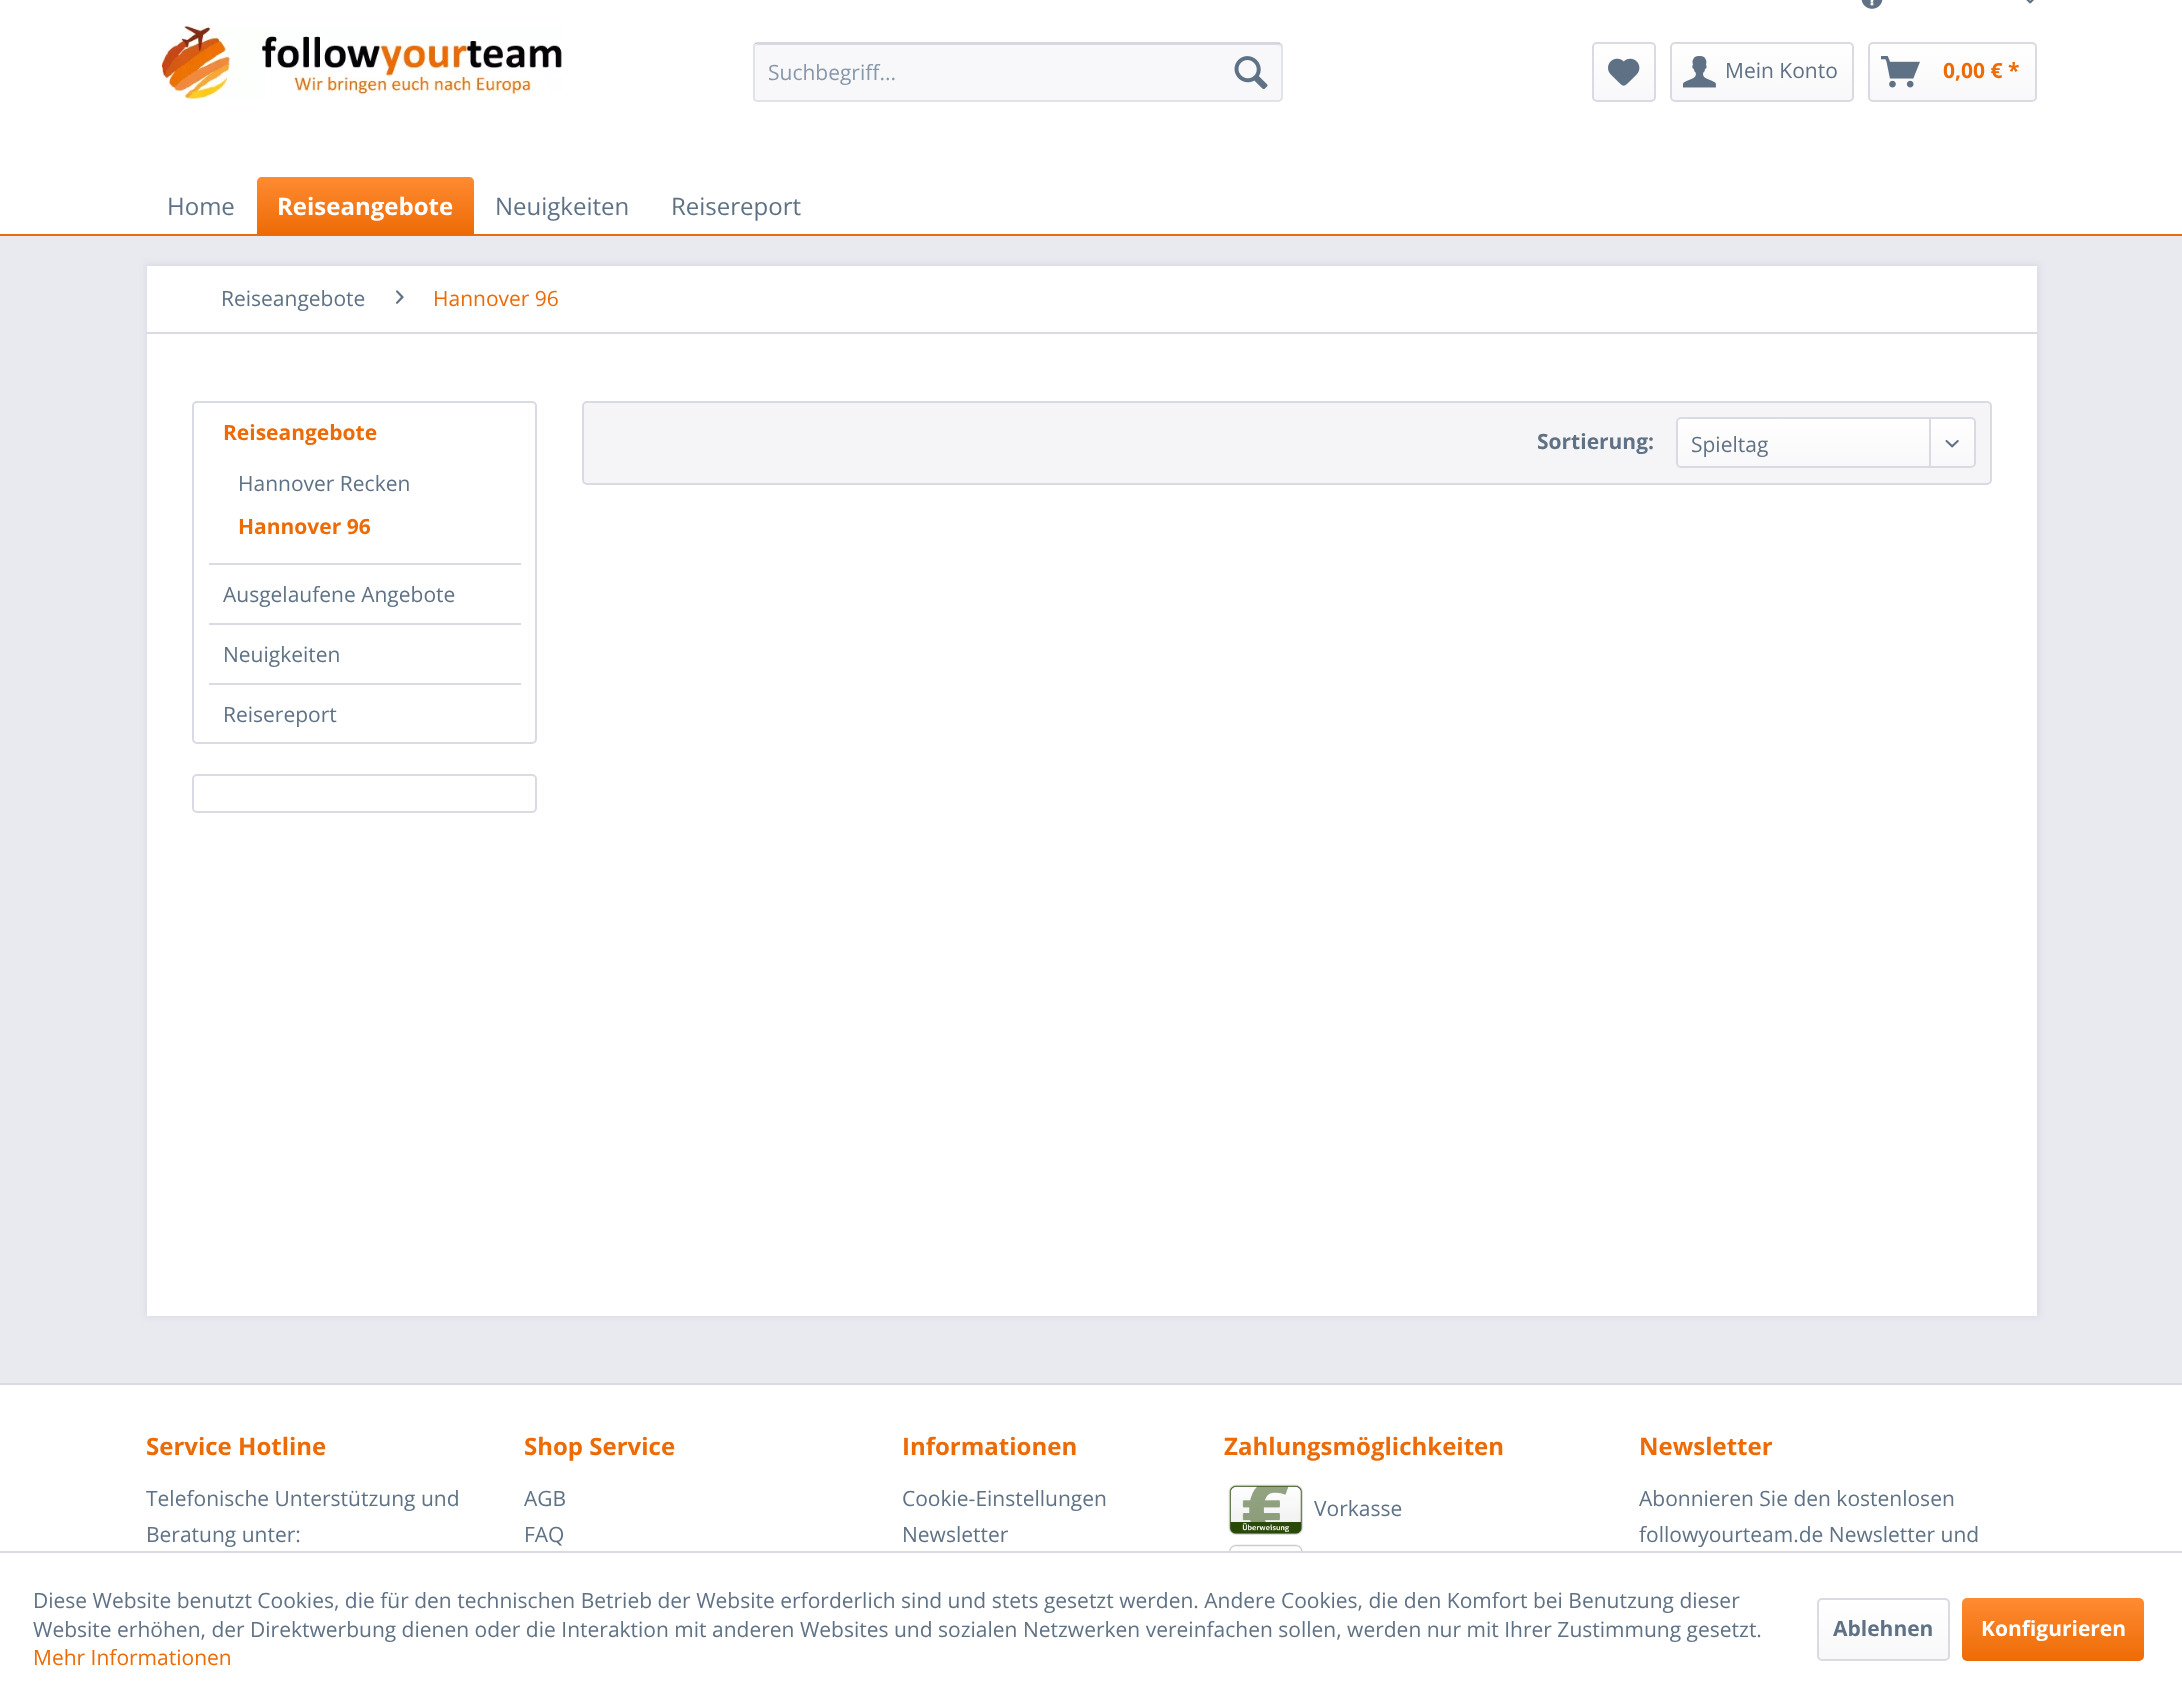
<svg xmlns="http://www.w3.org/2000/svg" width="2182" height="1704">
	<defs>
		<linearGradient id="g1" gradientUnits="userSpaceOnUse" x1="1624" y1="43" x2="1624" y2="101"><stop offset="0" stop-color="#FFFFFF" /><stop offset="1" stop-color="#F8F8FA" /></linearGradient>
		<linearGradient id="g2" gradientUnits="userSpaceOnUse" x1="1762" y1="43" x2="1762" y2="101"><stop offset="0" stop-color="#FFFFFF" /><stop offset="1" stop-color="#F8F8FA" /></linearGradient>
		<linearGradient id="g3" gradientUnits="userSpaceOnUse" x1="1952" y1="43" x2="1952" y2="101"><stop offset="0" stop-color="#FFFFFF" /><stop offset="1" stop-color="#F8F8FA" /></linearGradient>
		<linearGradient id="g4" gradientUnits="userSpaceOnUse" x1="365" y1="177" x2="365" y2="234"><stop offset="0" stop-color="#FF8B31" /><stop offset="1" stop-color="#ED6B06" /></linearGradient>
		<linearGradient id="g5" gradientUnits="userSpaceOnUse" x1="1826" y1="419" x2="1826" y2="467"><stop offset="0" stop-color="#FFFFFF" /><stop offset="1" stop-color="#F8F8FA" /></linearGradient>
		<linearGradient id="g6" gradientUnits="userSpaceOnUse" x1="1883" y1="1599" x2="1883" y2="1659"><stop offset="0" stop-color="#FFFFFF" /><stop offset="1" stop-color="#F8F8FA" /></linearGradient>
		<linearGradient id="g7" gradientUnits="userSpaceOnUse" x1="2053" y1="1598" x2="2053" y2="1661"><stop offset="0" stop-color="#FF8B31" /><stop offset="1" stop-color="#ED6B06" /></linearGradient>
	</defs>
	<rect width="100%" height="100%" fill="#E9E9F0" />
	<rect x="0" y="0" width="2182" height="234" fill="#FFFFFF" />
	<image x="1861" y="0" width="22" height="9" href="assets/img1.png" />
	<image x="2026" y="0" width="8" height="4" href="assets/img2.png" />
	<image x="162" y="26" width="400" height="73" href="assets/img3.png" />
	<rect x="753" y="42" width="530" height="60" rx="5" fill="#F8F8FA" />
	<path d="M758 45H1278C1280 45 1281 46 1281 48V47C1281 45 1280 44 1278 44H758C757 44 756 45 755 46Z" fill="#DADAE5" />
	<path d="M755 44C755.5 43 756.5 43 757.5 43H1278C1279 43 1280 43 1280.5 44" fill="none" stroke="#CBCBDB" stroke-width="1.5" />
	<path d="M1280.5 44C1281.5 44.5 1282 45.5 1282 46.5V97.5C1282 98.5 1281.5 99.5 1280.5 100C1280 101 1279 101 1278 101H757.5C756.5 101 755.5 101 755 100C754 99.5 754 98.5 754 97.5V46.5C754 45.5 754 44.5 755 44" fill="none" stroke="#DADAE5" stroke-width="1.5" />
	<text x="768" y="80" font-family="Open Sans" font-size="21" fill="#8798A9">Suchbegriff...</text>
	<image x="1234" y="56" width="34" height="33" href="assets/img4.png" />
	<rect x="1593" y="44" width="62" height="57" rx="3" fill="url(#g1)" />
	<rect x="1593" y="43" width="62" height="58" rx="4" fill="none" stroke="#DADAE5" stroke-width="2" />
	<image x="1608" y="58" width="32" height="28" href="assets/img5.png" />
	<rect x="1671" y="44" width="182" height="57" rx="3" fill="url(#g2)" />
	<rect x="1671" y="43" width="182" height="58" rx="4" fill="none" stroke="#DADAE5" stroke-width="2" />
	<image x="1683" y="56" width="33" height="32" href="assets/img6.png" />
	<text x="1725" y="78" font-family="Open Sans" font-size="21" fill="#5F7285">Mein Konto</text>
	<rect x="1869" y="44" width="167" height="57" rx="3" fill="url(#g3)" />
	<rect x="1869" y="43" width="167" height="58" rx="4" fill="none" stroke="#DADAE5" stroke-width="2" />
	<image x="1881" y="56" width="39" height="32" href="assets/img7.png" />
	<text x="1943" y="78" font-family="Open Sans" font-size="21" font-weight="700" fill="#ED6B06">0,00 € *</text>
	<rect x="0" y="234" width="2182" height="2" fill="#ED6B06" />
	<text x="167" y="215" font-family="Open Sans" font-size="24" fill="#5F7285">Home</text>
	<path d="M262 177H469C472 177 474 179 474 182V234H257V182C257 179 259 177 262 177Z" fill="url(#g4)" />
	<text x="277" y="215" font-family="Open Sans" font-size="24" font-weight="700" fill="#FFFFFF">Reiseangebote</text>
	<g font-family="Open Sans" font-size="24" fill="#5F7285">
		<text x="495" y="215">Neuigkeiten</text>
		<text x="671" y="215">Reisereport</text>
	</g>
	<rect x="146" y="264" width="1893" height="1053" fill="#DADAE5" filter="blur(3px)" />
	<rect x="147" y="266" width="1890" height="1050" fill="#FFFFFF" />
	<rect x="147" y="332" width="1890" height="2" fill="#DADAE5" />
	<text x="221" y="306" font-family="Open Sans" font-size="21" fill="#5F7285">Reiseangebote</text>
	<image x="396" y="290" width="8" height="14" href="assets/img8.png" />
	<text x="433" y="306" font-family="Open Sans" font-size="21" fill="#ED6B06">Hannover 96</text>
	<rect x="193" y="402" width="343" height="341" rx="4" fill="none" stroke="#DADAE5" stroke-width="2" />
	<rect x="209" y="563" width="312" height="2" fill="#DADAE5" />
	<text x="223" y="440" font-family="Open Sans" font-size="21" font-weight="700" fill="#ED6B06">Reiseangebote</text>
	<text x="238" y="491" font-family="Open Sans" font-size="21" fill="#5F7285">Hannover Recken</text>
	<text x="238" y="534" font-family="Open Sans" font-size="21" font-weight="700" fill="#ED6B06">Hannover 96</text>
	<rect x="209" y="623" width="312" height="2" fill="#DADAE5" />
	<text x="223" y="602" font-family="Open Sans" font-size="21" fill="#5F7285">Ausgelaufene Angebote</text>
	<rect x="209" y="683" width="312" height="2" fill="#DADAE5" />
	<g font-family="Open Sans" font-size="21" fill="#5F7285">
		<text x="223" y="662">Neuigkeiten</text>
		<text x="223" y="722">Reisereport</text>
	</g>
	<rect x="193" y="775" width="343" height="37" rx="4" fill="none" stroke="#DADAE5" stroke-width="2" />
	<rect x="583" y="402" width="1408" height="82" rx="4" fill="#F5F5F8" stroke="#DADAE5" stroke-width="2" />
	<text x="1537" y="449" font-family="Open Sans" font-size="21" font-weight="700" fill="#5F7285">Sortierung:</text>
	<rect x="1677" y="419" width="297" height="48" rx="3" fill="url(#g5)" />
	<rect x="1677" y="418" width="298" height="49" rx="4" fill="none" stroke="#DADAE5" stroke-width="2" />
	<text x="1691" y="452" font-family="Open Sans" font-size="21" fill="#5F7285">Spieltag</text>
	<rect x="1929" y="419" width="2" height="49" fill="#DADAE5" />
	<image x="1945" y="440" width="14" height="8" href="assets/img9.png" />
	<rect x="0" y="1385" width="2182" height="166" fill="#FFFFFF" />
	<rect x="0" y="1383" width="2182" height="2" fill="#DADAE5" />
	<text x="146" y="1455" font-family="Open Sans" font-size="24" font-weight="700" fill="#ED6B06">Service Hotline</text>
	<g font-family="Open Sans" font-size="21" fill="#5F7285">
		<text x="146" y="1506">Telefonische Unterstützung und</text>
		<text x="146" y="1542">Beratung unter:</text>
	</g>
	<text x="524" y="1455" font-family="Open Sans" font-size="24" font-weight="700" fill="#ED6B06">Shop Service</text>
	<g font-family="Open Sans" font-size="21" fill="#5F7285">
		<text x="524" y="1506">AGB</text>
		<text x="524" y="1542">FAQ</text>
	</g>
	<text x="902" y="1455" font-family="Open Sans" font-size="24" font-weight="700" fill="#ED6B06">Informationen</text>
	<g font-family="Open Sans" font-size="21" fill="#5F7285">
		<text x="902" y="1506">Cookie-Einstellungen</text>
		<text x="902" y="1542">Newsletter</text>
	</g>
	<text x="1224" y="1455" font-family="Open Sans" font-size="24" font-weight="700" fill="#ED6B06">Zahlungsmöglichkeiten</text>
	<image x="1228" y="1484" width="75" height="51" href="assets/img10.png" />
	<text x="1314" y="1516" font-family="Open Sans" font-size="21" fill="#5F7285">Vorkasse</text>
	<image x="1228" y="1544" width="75" height="7" href="assets/img11.png" />
	<text x="1639" y="1455" font-family="Open Sans" font-size="24" font-weight="700" fill="#ED6B06">Newsletter</text>
	<g font-family="Open Sans" font-size="21" fill="#5F7285">
		<text x="1639" y="1506">Abonnieren Sie den kostenlosen</text>
		<text x="1639" y="1542">followyourteam.de Newsletter und</text>
	</g>
	<rect x="0" y="1553" width="2182" height="151" fill="#FFFFFF" />
	<rect x="0" y="1551" width="2182" height="2" fill="#DADAE5" />
	<g font-family="Open Sans" font-size="21" fill="#5F7285">
		<text x="33" y="1608">Diese Website benutzt Cookies, die für den technischen Betrieb der Website erforderlich sind und stets gesetzt werden. Andere Cookies, die den Komfort bei Benutzung dieser</text>
		<text x="33" y="1637">Website erhöhen, der Direktwerbung dienen oder die Interaktion mit anderen Websites und sozialen Netzwerken vereinfachen sollen, werden nur mit Ihrer Zustimmung gesetzt.</text>
	</g>
	<text x="33" y="1665" font-family="Open Sans" font-size="21" fill="#ED6B06">Mehr Informationen</text>
	<rect x="1818" y="1599" width="131" height="60" rx="3" fill="url(#g6)" />
	<rect x="1818" y="1599" width="131" height="61" rx="4" fill="none" stroke="#DADAE5" stroke-width="2" />
	<text x="1833" y="1636" font-family="Open Sans" font-size="21" font-weight="700" fill="#5F7285">Ablehnen</text>
	<rect x="1962" y="1598" width="182" height="63" rx="5" fill="url(#g7)" />
	<text x="1981" y="1636" font-family="Open Sans" font-size="21" font-weight="700" fill="#FFFFFF">Konfigurieren</text>
</svg>
